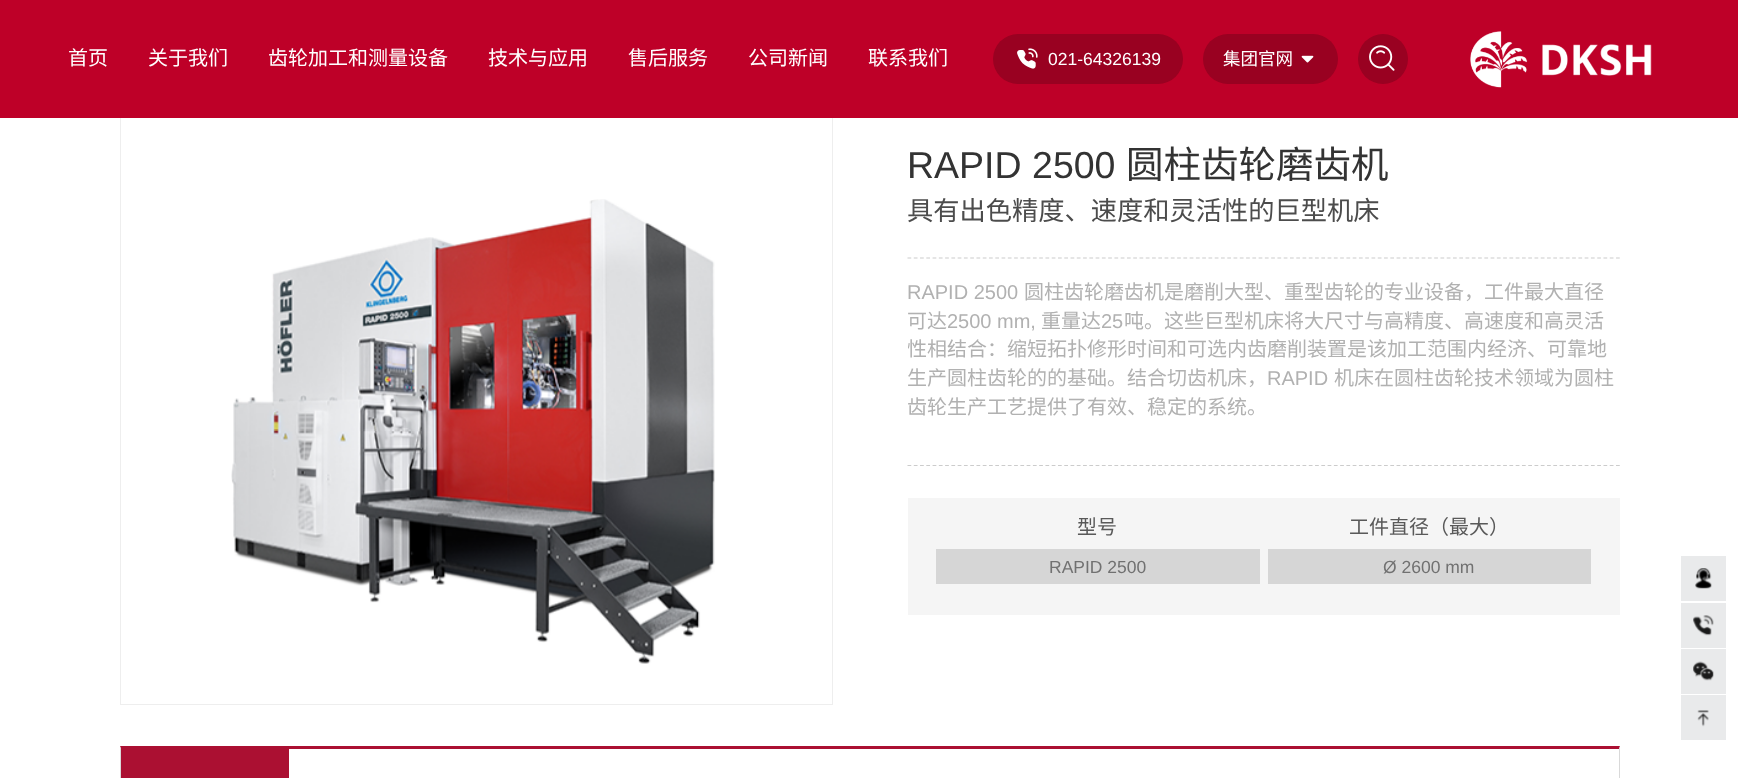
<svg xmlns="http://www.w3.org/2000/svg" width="1738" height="778">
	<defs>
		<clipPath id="clip1"><rect x="908" y="278" width="712" height="143" /></clipPath>
	</defs>
	<rect width="100%" height="100%" fill="#FFFFFF" />
	<rect x="120.5" y="115.5" width="712" height="589" fill="none" stroke="#EEEEEE" />
	<rect x="0" y="0" width="1738" height="118" fill="#BE0028" />
	<g font-family="Noto Sans CJK SC" font-size="20" fill="#FFFFFF">
		<text x="68" y="65">首页</text>
		<text x="148" y="65">关于我们</text>
		<text x="268" y="65">齿轮加工和测量设备</text>
		<text x="488" y="65">技术与应用</text>
		<text x="628" y="65">售后服务</text>
		<text x="748" y="65">公司新闻</text>
		<text x="868" y="65">联系我们</text>
	</g>
	<rect x="993" y="34" width="190" height="50" rx="25" fill="#990121" />
	<image x="1017" y="48" width="21" height="21" href="assets/img1.png" />
	<text x="1048" y="65" font-family="Liberation Sans" font-size="17.5" fill="#FFFFFF">021-64326139</text>
	<rect x="1203" y="34" width="135" height="50" rx="25" fill="#990121" />
	<text x="1223" y="65" font-family="Noto Sans CJK SC" font-size="17.5" fill="#FFFFFF">集团官网</text>
	<image x="1301" y="55" width="13" height="8" href="assets/img2.png" />
	<circle cx="1383" cy="59" r="25" fill="#990121" />
	<image x="1369" y="45" width="26" height="26" href="assets/img3.png" />
	<image x="1470" y="31" width="182" height="57" href="assets/img4.png" />
	<image x="231" y="199" width="484" height="465" href="assets/img5.png" />
	<text x="907" y="178" font-family="Liberation Sans" font-size="37.5" fill="#333333">RAPID 2500</text>
	<text x="1126" y="178" font-family="Noto Sans CJK SC" font-size="37.5" fill="#333333">圆柱齿轮磨齿机</text>
	<text x="907" y="220" font-family="Noto Sans CJK SC" font-size="26.25" fill="#4C4C4C">具有出色精度、速度和灵活性的巨型机床</text>
	<path d="M907.5 258H1620" fill="none" stroke="#CCCCCC" stroke-width="1.2" stroke-dasharray="3.75 2.52" />
	<path d="M907.5 465.5H1620" fill="none" stroke="#CCCCCC" stroke-width="1.2" stroke-dasharray="3.75 2.52" />
	<text x="907" y="299" font-family="Liberation Sans" font-size="20" fill="#B1B1B1">RAPID 2500</text>
	<g font-family="Noto Sans CJK SC" font-size="20" fill="#B1B1B1">
		<text x="1024" y="299">圆柱齿轮磨齿机是磨削大型、重型齿轮的专业设备，工件最大直径</text>
		<text x="907" y="328">可达</text>
	</g>
	<text x="947" y="328" font-family="Liberation Sans" font-size="20" fill="#B1B1B1">2500 mm,</text>
	<text x="1041" y="328" font-family="Noto Sans CJK SC" font-size="20" fill="#B1B1B1">重量达</text>
	<text x="1101" y="328" font-family="Liberation Sans" font-size="20" fill="#B1B1B1">25</text>
	<text x="1124" y="328" font-family="Noto Sans CJK SC" font-size="20" fill="#B1B1B1">吨。这些巨型机床将大尺寸与高精度、高速度和高灵活</text>
	<g clip-path="url(#clip1)">
		<text x="907" y="356" font-family="Noto Sans CJK SC" font-size="20" fill="#B1B1B1">性相结合：缩短拓扑修形时间和可选内齿磨削装置是该加工范围内经济、可靠地</text>
	</g>
	<text x="907" y="385" font-family="Noto Sans CJK SC" font-size="20" fill="#B1B1B1">生产圆柱齿轮的的基础。结合切齿机床，</text>
	<text x="1267" y="385" font-family="Liberation Sans" font-size="20" fill="#B1B1B1">RAPID</text>
	<g font-family="Noto Sans CJK SC" font-size="20" fill="#B1B1B1">
		<text x="1334" y="385">机床在圆柱齿轮技术领域为圆柱</text>
		<text x="907" y="414">齿轮生产工艺提供了有效、稳定的系统。</text>
	</g>
	<rect x="908" y="498" width="712" height="117" fill="#F5F5F5" />
	<g font-family="Noto Sans CJK SC" font-size="20" fill="#595959">
		<text x="1077" y="534">型号</text>
		<text x="1349" y="534">工件直径（最大）</text>
	</g>
	<rect x="936" y="549" width="324" height="35" fill="#D6D6D6" />
	<text x="1049" y="573" font-family="Liberation Sans" font-size="17.5" fill="#717171">RAPID 2500</text>
	<rect x="1268" y="549" width="323" height="35" fill="#D6D6D6" />
	<text x="1383" y="573" font-family="Liberation Sans" font-size="17.5" fill="#717171">Ø 2600 mm</text>
	<path d="M120 746H1620L1619 749H121Z" fill="#AB1032" />
	<path d="M1620 746V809L1619 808V749Z" fill="#D9D9D9" />
	<path d="M120 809V746L121 749V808Z" fill="#D9D9D9" />
	<rect x="121" y="749" width="168" height="29" fill="#AB1032" />
	<rect x="1681" y="556" width="45" height="45" fill="#E9EAEB" />
	<image x="1695" y="568" width="17" height="21" href="assets/img6.png" />
	<rect x="1681" y="603" width="45" height="45" fill="#E9EAEB" />
	<image x="1693" y="615" width="21" height="21" href="assets/img7.png" />
	<rect x="1681" y="649" width="45" height="45" fill="#E9EAEB" />
	<image x="1693" y="661" width="21" height="20" href="assets/img8.png" />
	<rect x="1681" y="695" width="45" height="45" fill="#E9EAEB" />
	<image x="1697" y="710" width="12" height="17" href="assets/img9.png" />
</svg>
